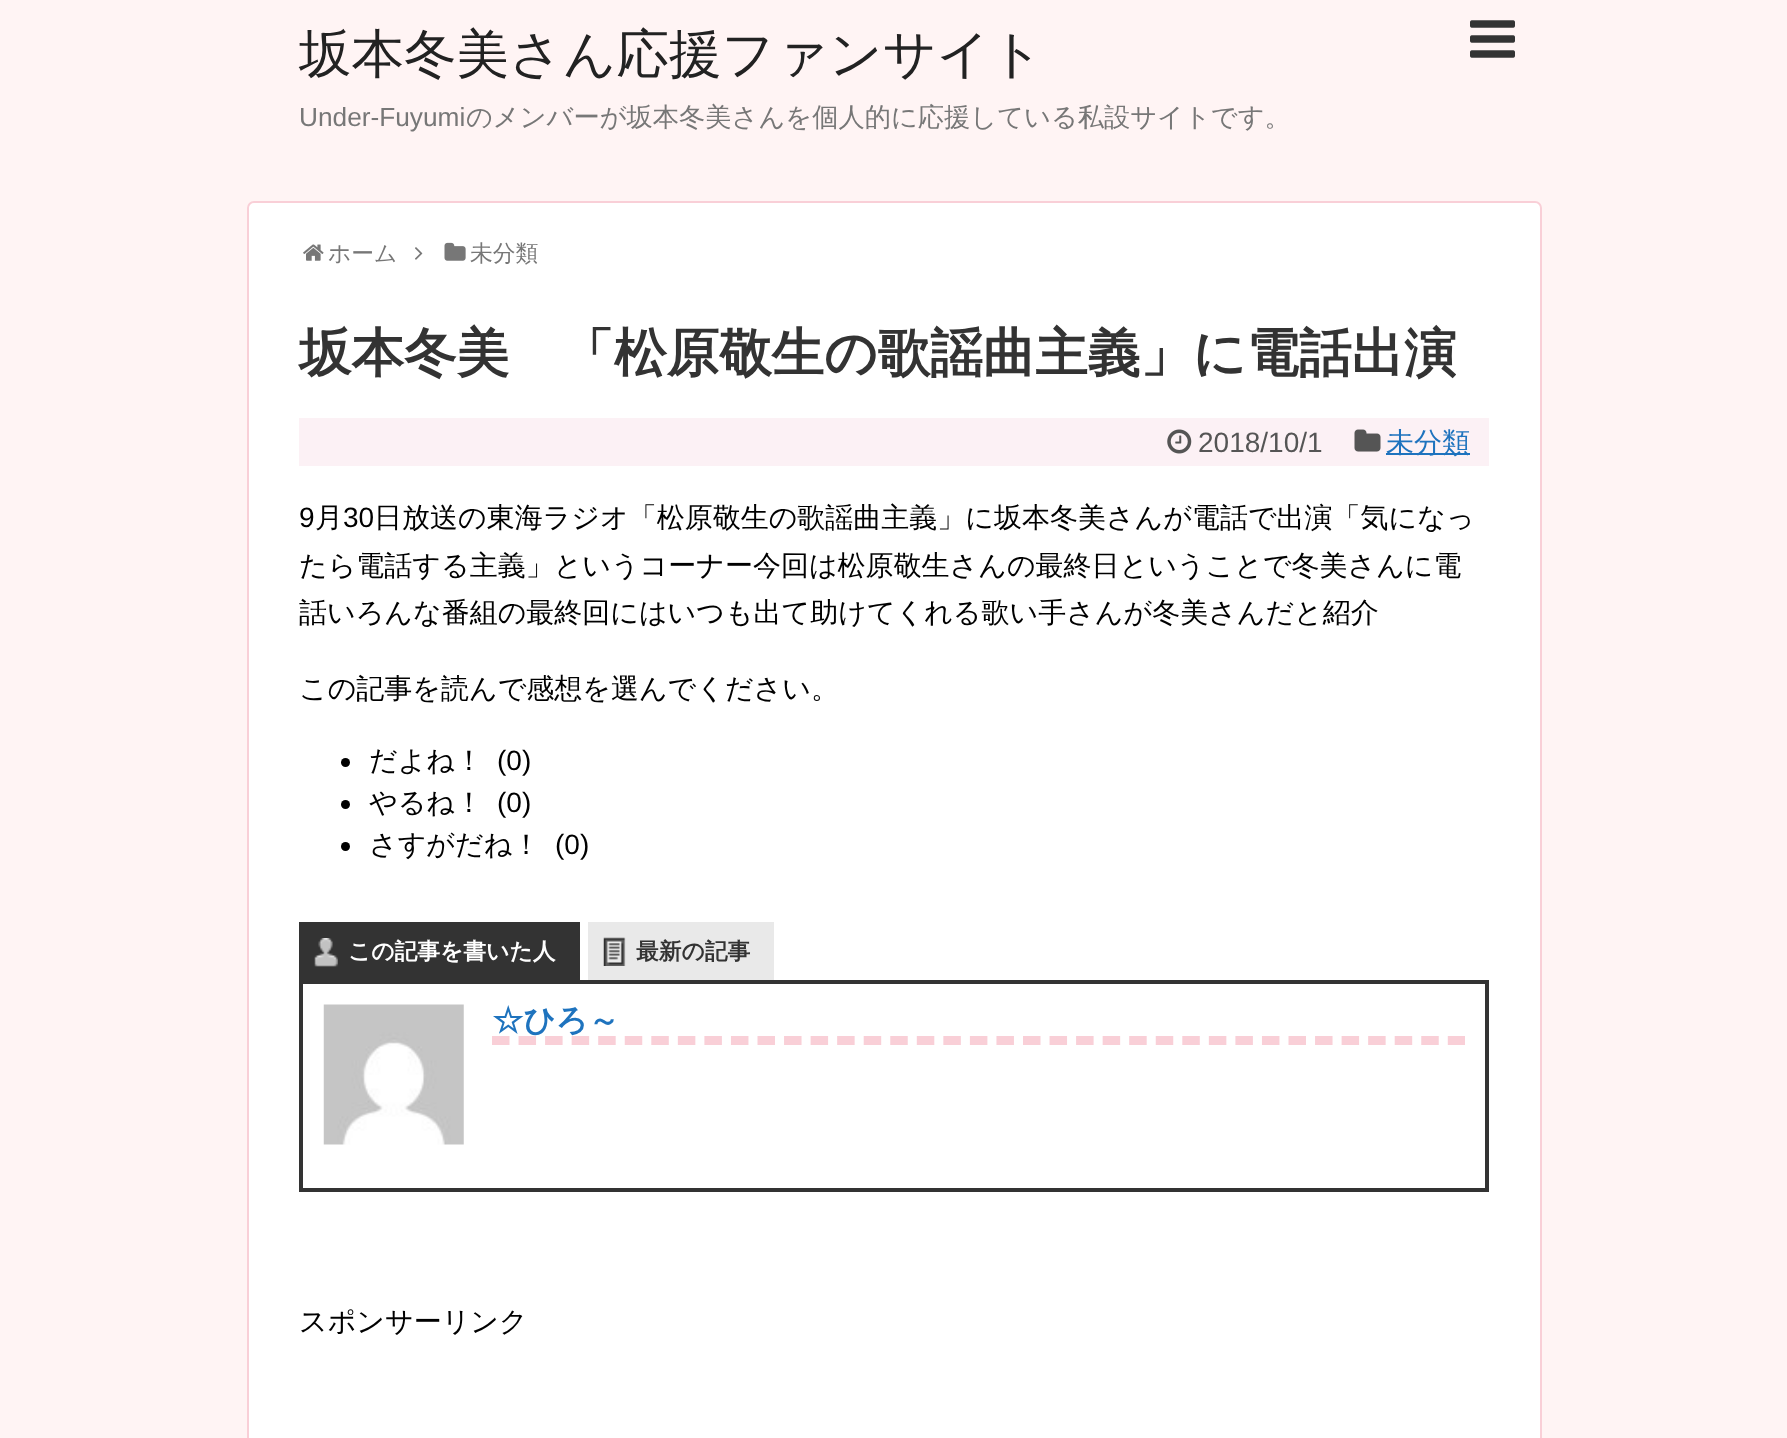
<svg xmlns="http://www.w3.org/2000/svg" width="1787" height="1438">
	<rect width="100%" height="100%" fill="#FFF4F4" />
	<text x="299" y="72" font-family="WenQuanYi Zen Hei" font-size="52.5" font-weight="500" fill="#222222">坂本冬美さん応援ファンサイト</text>
	<text x="299" y="126" font-family="Liberation Sans" font-size="26.25" fill="#777777">Under-Fuyumi</text>
	<text x="466" y="126" font-family="WenQuanYi Zen Hei" font-size="26.25" font-weight="500" fill="#777777">のメンバーが坂本冬美さんを個人的に応援している私設サイトです。</text>
	<image x="1470" y="20" width="45" height="38" href="assets/img1.png" />
	<rect x="248" y="202" width="1293" height="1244" rx="6" fill="#FFFFFF" stroke="#F9CFD7" stroke-width="2" />
	<image x="303" y="244" width="21" height="17" href="assets/img2.png" />
	<text x="328" y="261" font-family="WenQuanYi Zen Hei" font-size="22.75" font-weight="500" fill="#777777">ホーム</text>
	<image x="415" y="247" width="8" height="13" href="assets/img3.png" />
	<image x="444" y="242" width="22" height="19" href="assets/img4.png" />
	<text x="470" y="261" font-family="WenQuanYi Zen Hei" font-size="22.75" font-weight="500" fill="#777777">未分類</text>
	<text x="299" y="371" font-family="WenQuanYi Zen Hei" font-size="52.5" font-weight="700" fill="#333333">坂本冬美　「松原敬生の歌謡曲主義」に電話出演</text>
	<rect x="299" y="418" width="1190" height="48" fill="#FCF1F5" />
	<image x="1167" y="429" width="25" height="25" href="assets/img5.png" />
	<text x="1198" y="452" font-family="Liberation Sans" font-size="28" fill="#555555">2018/10/1</text>
	<image x="1354" y="429" width="27" height="23" href="assets/img6.png" />
	<rect x="1386" y="453" width="84" height="2" fill="#1E73BE" />
	<text x="1386" y="452" font-family="WenQuanYi Zen Hei" font-size="28" font-weight="500" fill="#1E73BE">未分類</text>
	<text x="299" y="527" font-family="Liberation Sans" font-size="28" fill="#000000">9</text>
	<text x="315" y="527" font-family="WenQuanYi Zen Hei" font-size="28" font-weight="500" fill="#000000">月</text>
	<text x="343" y="527" font-family="Liberation Sans" font-size="28" fill="#000000">30</text>
	<g font-family="WenQuanYi Zen Hei" font-size="28" font-weight="500" fill="#000000">
		<text x="374" y="527">日放送の東海ラジオ「松原敬生の歌謡曲主義」に坂本冬美さんが電話で出演「気になっ</text>
		<text x="299" y="575">たら電話する主義」というコーナー今回は松原敬生さんの最終日ということで冬美さんに電</text>
		<text x="299" y="622">話いろんな番組の最終回にはいつも出て助けてくれる歌い手さんが冬美さんだと紹介</text>
		<text x="299" y="698">この記事を読んで感想を選んでください。</text>
	</g>
	<circle cx="345.5" cy="762.5" r="4.5" fill="#000000" />
	<text x="369" y="770" font-family="WenQuanYi Zen Hei" font-size="28" font-weight="500" fill="#000000">だよね！</text>
	<text x="497" y="770" font-family="Liberation Sans" font-size="28" fill="#000000">(0)</text>
	<circle cx="345.5" cy="804.5" r="4.5" fill="#000000" />
	<text x="369" y="812" font-family="WenQuanYi Zen Hei" font-size="28" font-weight="500" fill="#000000">やるね！</text>
	<text x="497" y="812" font-family="Liberation Sans" font-size="28" fill="#000000">(0)</text>
	<circle cx="345.5" cy="846.5" r="4.5" fill="#000000" />
	<text x="369" y="854" font-family="WenQuanYi Zen Hei" font-size="28" font-weight="500" fill="#000000">さすがだね！</text>
	<text x="555" y="854" font-family="Liberation Sans" font-size="28" fill="#000000">(0)</text>
	<rect x="299" y="922" width="281" height="58" fill="#333333" />
	<image x="314" y="938" width="24" height="29" href="assets/img7.png" />
	<text x="348" y="959" font-family="WenQuanYi Zen Hei" font-size="22.75" font-weight="700" fill="#FFFFFF">この記事を書いた人</text>
	<rect x="588" y="922" width="186" height="58" fill="#E9E9E9" />
	<image x="603" y="937" width="23" height="29" href="assets/img8.png" />
	<text x="636" y="959" font-family="WenQuanYi Zen Hei" font-size="22.75" font-weight="700" fill="#333333">最新の記事</text>
	<rect x="301" y="982" width="1186" height="208" fill="none" stroke="#333333" stroke-width="4" />
	<image x="323" y="1004" width="141" height="141" href="assets/img9.png" />
	<path d="M492 1040.5H1465" fill="none" stroke="#F9CFD7" stroke-width="8.8" stroke-dasharray="17.5 9.05" />
	<text x="492" y="1031" font-family="WenQuanYi Zen Hei" font-size="31.5" font-weight="700" fill="#1E73BE">☆ひろ～</text>
	<text x="299" y="1331" font-family="WenQuanYi Zen Hei" font-size="28" font-weight="500" fill="#000000">スポンサーリンク</text>
</svg>
